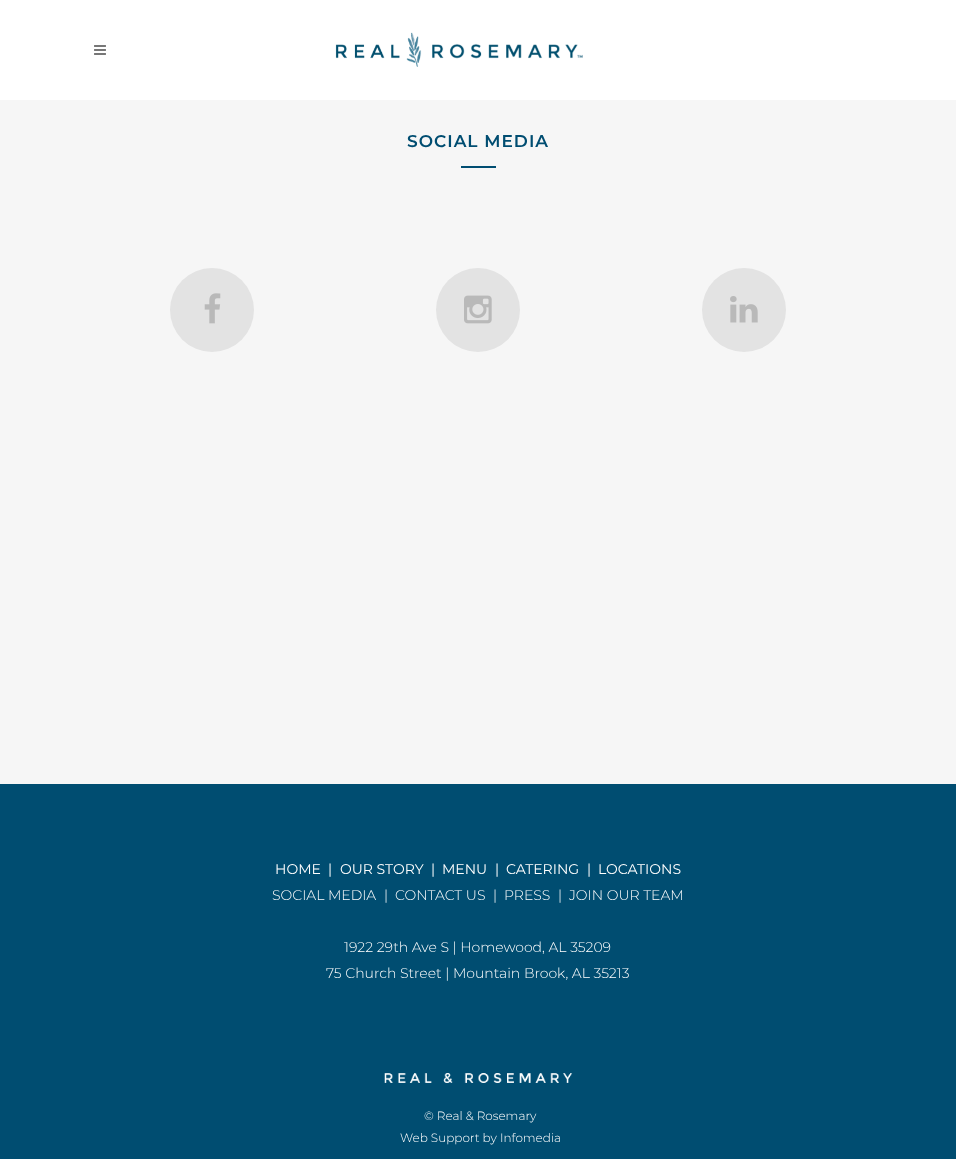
<svg xmlns="http://www.w3.org/2000/svg" width="956" height="1159">
	<rect width="100%" height="100%" fill="#F6F6F6" />
	<rect x="0" y="0" width="956" height="100" fill="#FFFFFF" />
	<image x="94" y="45" width="12" height="10" href="assets/img1.png" />
	<image x="335" y="32" width="248" height="35" href="assets/img2.png" />
	<text x="407" y="147" font-family="Montserrat" font-size="17" font-weight="600" letter-spacing="1" fill="#004D71">SOCIAL MEDIA</text>
	<rect x="461" y="166" width="35" height="2" fill="#004D71" />
	<circle cx="212" cy="310" r="42" fill="#E3E3E3" />
	<image x="204" y="293" width="17" height="31" href="assets/img3.png" />
	<circle cx="478" cy="310" r="42" fill="#E3E3E3" />
	<image x="464" y="295" width="28" height="29" href="assets/img4.png" />
	<circle cx="744" cy="310" r="42" fill="#E3E3E3" />
	<image x="730" y="296" width="28" height="27" href="assets/img5.png" />
	<rect x="0" y="784" width="956" height="375" fill="#004D71" />
	<g font-family="Montserrat" font-size="14" fill="#FFFFFF">
		<text x="275" y="874">HOME</text>
		<text x="328" y="874">|</text>
		<text x="340" y="874">OUR STORY</text>
		<text x="431" y="874">|</text>
		<text x="442" y="874">MENU</text>
		<text x="495" y="874">|</text>
		<text x="506" y="874">CATERING</text>
		<text x="587" y="874">|</text>
		<text x="598" y="874">LOCATIONS</text>
	</g>
	<g font-family="Montserrat" font-size="14" font-weight="300" fill="#FFFFFF">
		<text x="272" y="900">SOCIAL MEDIA</text>
		<text x="384" y="900">|</text>
		<text x="395" y="900">CONTACT US</text>
		<text x="493" y="900">|</text>
		<text x="504" y="900">PRESS</text>
		<text x="558" y="900">|</text>
		<text x="569" y="900">JOIN OUR TEAM</text>
		<text x="344" y="952">1922 29th Ave S | Homewood, AL 35209</text>
		<text x="326" y="978">75 Church Street | Mountain Brook, AL 35213</text>
	</g>
	<image x="384" y="1073" width="189" height="10" href="assets/img6.png" />
	<g font-family="Montserrat" font-size="12" font-weight="300" fill="#FFFFFF">
		<text x="424" y="1120">© Real &amp; Rosemary</text>
		<text x="400" y="1142">Web Support by Infomedia</text>
	</g>
</svg>
